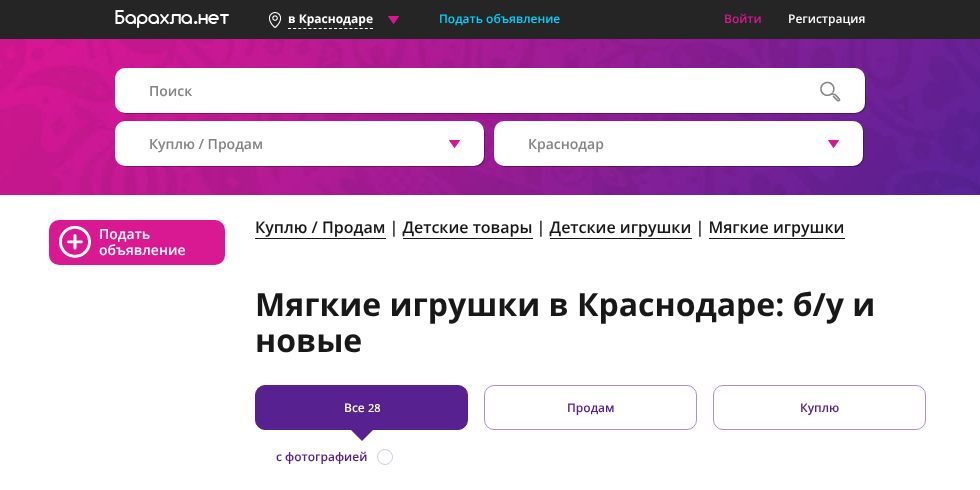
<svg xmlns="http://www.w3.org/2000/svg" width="980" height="490">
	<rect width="100%" height="100%" fill="#FFFFFF" />
	<rect x="0" y="0" width="980" height="39" fill="#252525" />
	<image x="115" y="10" width="114" height="18" href="assets/img1.png" />
	<image x="269" y="12" width="12" height="16" href="assets/img2.png" />
	<path d="M288 28.5H373" fill="none" stroke="#FFFFFF" stroke-dasharray="3 2.12" />
	<text x="288" y="23" font-family="Open Sans" font-size="12" font-weight="700" fill="#FFFFFF">в Краснодаре</text>
	<image x="388" y="16" width="11" height="8" href="assets/img3.png" />
	<text x="439" y="23" font-family="Open Sans" font-size="12" font-weight="600" fill="#00D2FF">Подать объявление</text>
	<text x="724" y="23" font-family="Open Sans" font-size="12" font-weight="600" fill="#D81991">Войти</text>
	<text x="788" y="23" font-family="Open Sans" font-size="12" font-weight="600" fill="#FFFFFF">Регистрация</text>
	<image x="0" y="39" width="980" height="156" href="assets/img4.png" />
	<rect x="116" y="69" width="750" height="45" rx="10" fill="#000000" fill-opacity="0.3" filter="blur(0.5px)" />
	<rect x="115" y="68" width="750" height="45" rx="10" fill="#FFFFFF" />
	<text x="149" y="96" font-family="Open Sans" font-size="14" font-weight="600" fill="#848484">Поиск</text>
	<image x="820" y="81" width="21" height="21" href="assets/img5.png" />
	<rect x="116" y="122" width="369" height="45" rx="10" fill="#000000" fill-opacity="0.3" filter="blur(0.5px)" />
	<rect x="115" y="121" width="369" height="45" rx="10" fill="#FFFFFF" />
	<image x="449" y="140" width="11" height="8" href="assets/img6.png" />
	<text x="149" y="149" font-family="Open Sans" font-size="14" font-weight="600" fill="#848484">Куплю / Продам</text>
	<rect x="495" y="122" width="369" height="45" rx="10" fill="#000000" fill-opacity="0.3" filter="blur(0.5px)" />
	<rect x="494" y="121" width="369" height="45" rx="10" fill="#FFFFFF" />
	<image x="828" y="140" width="11" height="8" href="assets/img6.png" />
	<text x="528" y="149" font-family="Open Sans" font-size="14" font-weight="600" fill="#848484">Краснодар</text>
	<rect x="49" y="220" width="176" height="45" rx="10" fill="#D81991" />
	<image x="59" y="226" width="32" height="32" href="assets/img7.png" />
	<g font-family="Open Sans" font-size="14" font-weight="600" fill="#FFFFFF">
		<text x="99" y="239">Подать</text>
		<text x="99" y="255">объявление</text>
	</g>
	<text x="255" y="233" font-family="Open Sans" font-size="16" font-weight="600" fill="#181818">Куплю / Продам | Детские товары | Детские игрушки | Мягкие игрушки</text>
	<rect x="255" y="238" width="131" height="1" fill="#181818" />
	<rect x="403" y="238" width="130" height="1" fill="#181818" />
	<rect x="550" y="238" width="142" height="1" fill="#181818" />
	<rect x="709" y="238" width="136" height="1" fill="#181818" />
	<g font-family="Open Sans" font-size="32" font-weight="700" fill="#181818">
		<text x="255" y="316">Мягкие игрушки в Краснодаре: б/у и</text>
		<text x="255" y="352">новые</text>
	</g>
	<rect x="255.5" y="385.5" width="212" height="44" rx="9.5" fill="#57228F" stroke="#57228F" />
	<text x="344" y="412" font-family="Open Sans" font-size="12" font-weight="600" fill="#FFFFFF">Все</text>
	<text x="368" y="412" font-family="Open Sans" font-size="11" font-weight="600" fill="#FFFFFF">28</text>
	<path d="M350 429H374L362 441Z" fill="#57228F" />
	<rect x="484.5" y="385.5" width="212" height="44" rx="9.5" fill="none" stroke="#AE90C6" />
	<text x="567" y="412" font-family="Open Sans" font-size="12" font-weight="600" fill="#57228F">Продам</text>
	<rect x="713.5" y="385.5" width="212" height="44" rx="9.5" fill="none" stroke="#AE90C6" />
	<g font-family="Open Sans" font-size="12" font-weight="600" fill="#57228F">
		<text x="800" y="412">Куплю</text>
		<text x="276" y="461">с фотографией</text>
	</g>
	<circle cx="385" cy="457" r="7.5" fill="none" stroke="#CDD1DA" />
</svg>
